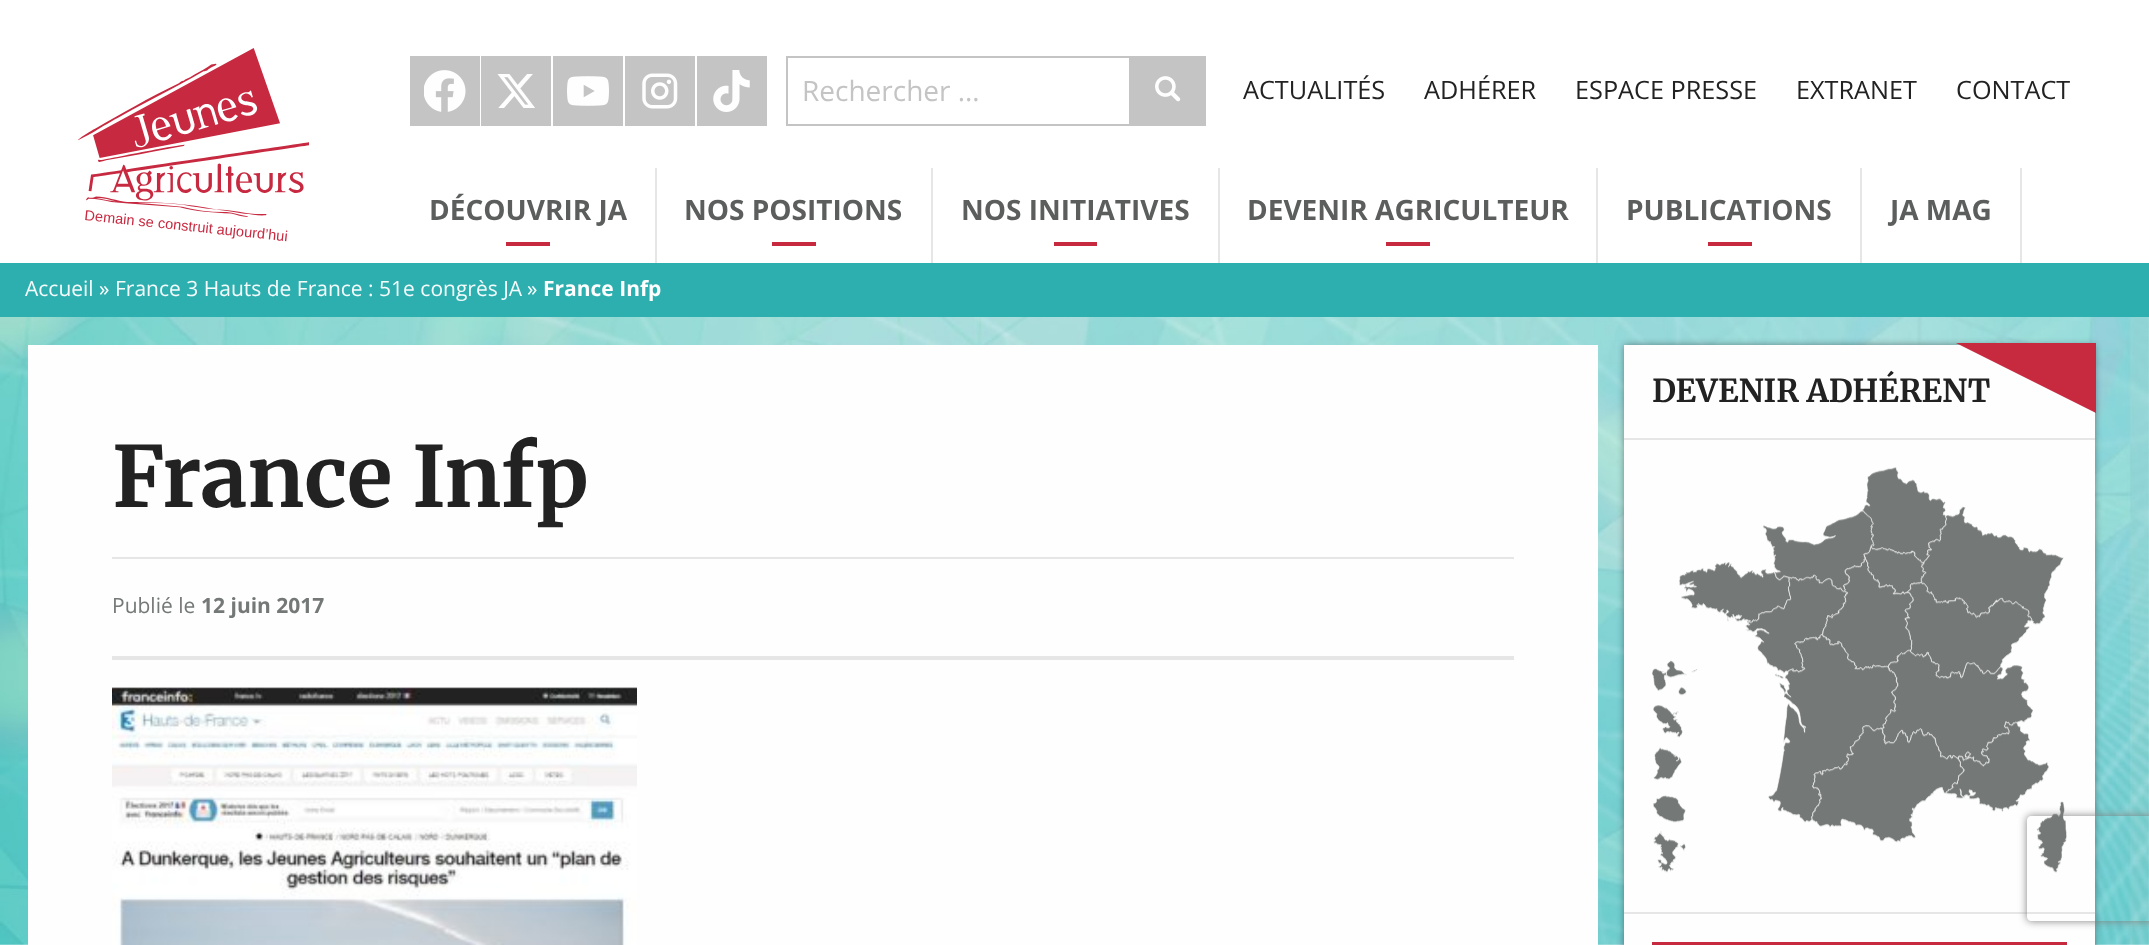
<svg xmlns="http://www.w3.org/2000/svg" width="2149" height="945">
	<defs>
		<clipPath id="clip1"><path d="M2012 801H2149V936H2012ZM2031 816H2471C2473 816 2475 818 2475 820V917C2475 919 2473 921 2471 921H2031C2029 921 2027 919 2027 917V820C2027 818 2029 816 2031 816Z" clip-rule="evenodd" /></clipPath>
	</defs>
	<rect width="100%" height="100%" fill="#FFFFFF" />
	<image x="0" y="317" width="2149" height="628" href="assets/img1.png" />
	<image x="78" y="48" width="231" height="194" href="assets/img2.png" />
	<rect x="410" y="56" width="70" height="70" fill="#C4C4C4" />
	<image x="424" y="70" width="42" height="42" href="assets/img3.png" />
	<rect x="481" y="56" width="70" height="70" fill="#C4C4C4" />
	<image x="497" y="74" width="38" height="34" href="assets/img4.png" />
	<rect x="553" y="56" width="70" height="70" fill="#C4C4C4" />
	<image x="567" y="76" width="42" height="30" href="assets/img5.png" />
	<rect x="625" y="56" width="70" height="70" fill="#C4C4C4" />
	<image x="642" y="73" width="36" height="36" href="assets/img6.png" />
	<rect x="697" y="56" width="70" height="70" fill="#C4C4C4" />
	<image x="713" y="70" width="37" height="42" href="assets/img7.png" />
	<rect x="787" y="57" width="343" height="68" fill="none" stroke="#C4C4C4" stroke-width="2" />
	<text x="802" y="101" font-family="Open Sans" font-size="28" fill="#C4C4C4">Rechercher …</text>
	<rect x="1131" y="56" width="75" height="70" fill="#C4C4C4" />
	<image x="1155" y="76" width="26" height="26" href="assets/img8.png" />
	<g font-family="Open Sans" font-size="25.25" fill="#222222">
		<text x="1243" y="99">ACTUALITÉS</text>
		<text x="1424" y="99">ADHÉRER</text>
		<text x="1575" y="99">ESPACE PRESSE</text>
		<text x="1796" y="99">EXTRANET</text>
		<text x="1956" y="99">CONTACT</text>
	</g>
	<rect x="655" y="168" width="2" height="95" fill="#E6E6E6" />
	<text x="429" y="220" font-family="Open Sans" font-size="28" font-weight="700" fill="#5B5E5D">DÉCOUVRIR JA</text>
	<rect x="506" y="242" width="44" height="4" fill="#C7293F" />
	<rect x="931" y="168" width="2" height="95" fill="#E6E6E6" />
	<text x="684" y="220" font-family="Open Sans" font-size="28" font-weight="700" fill="#5B5E5D">NOS POSITIONS</text>
	<rect x="772" y="242" width="44" height="4" fill="#C7293F" />
	<rect x="1218" y="168" width="2" height="95" fill="#E6E6E6" />
	<text x="961" y="220" font-family="Open Sans" font-size="28" font-weight="700" fill="#5B5E5D">NOS INITIATIVES</text>
	<rect x="1054" y="242" width="43" height="4" fill="#C7293F" />
	<rect x="1596" y="168" width="2" height="95" fill="#E6E6E6" />
	<text x="1247" y="220" font-family="Open Sans" font-size="28" font-weight="700" fill="#5B5E5D">DEVENIR AGRICULTEUR</text>
	<rect x="1386" y="242" width="44" height="4" fill="#C7293F" />
	<rect x="1860" y="168" width="2" height="95" fill="#E6E6E6" />
	<text x="1626" y="220" font-family="Open Sans" font-size="28" font-weight="700" fill="#5B5E5D">PUBLICATIONS</text>
	<rect x="1708" y="242" width="44" height="4" fill="#C7293F" />
	<rect x="2020" y="168" width="2" height="95" fill="#E6E6E6" />
	<text x="1890" y="220" font-family="Open Sans" font-size="28" font-weight="700" fill="#5B5E5D">JA MAG</text>
	<rect x="0" y="263" width="2149" height="54" fill="#2EAFAF" />
	<text x="25" y="296" font-family="Open Sans" font-size="21" fill="#F5FBFB">Accueil</text>
	<text x="99" y="296" font-family="Open Sans" font-size="21" fill="#FEFEFE">»</text>
	<text x="115" y="296" font-family="Open Sans" font-size="21" fill="#F5FBFB">France 3 Hauts de France : 51e congrès JA</text>
	<text x="527" y="296" font-family="Open Sans" font-size="21" fill="#FEFEFE">»</text>
	<text x="543" y="296" font-family="Open Sans" font-size="21" font-weight="700" fill="#FEFEFE">France Infp</text>
	<rect x="1624" y="345" width="471" height="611" fill="#000000" fill-opacity="0.4" filter="blur(3.5px)" />
	<rect x="1624" y="345" width="471" height="600" fill="#FEFEFE" />
	<rect x="1624" y="438" width="471" height="2" fill="#E6E6E6" />
	<text x="1652" y="402" font-family="Merriweather" font-size="31.5" font-weight="300" fill="#222222">DEVENIR ADHÉRENT</text>
	<path d="M1956 343H2096V413Z" fill="#C7293F" />
	<image x="1652" y="467" width="415" height="406" href="assets/img9.png" />
	<rect x="1624" y="912" width="471" height="2" fill="#E6E6E6" />
	<rect x="1652" y="942" width="415" height="3" fill="#C7293F" />
	<rect x="28" y="345" width="1570" height="600" fill="#FEFEFE" />
	<rect x="112" y="557" width="1402" height="2" fill="#E6E6E6" />
	<text x="112" y="507" font-family="Merriweather" font-size="84" font-weight="300" fill="#222222">France Infp</text>
	<text x="112" y="613" font-family="Open Sans" font-size="21" fill="#747877">Publié le</text>
	<text x="201" y="613" font-family="Open Sans" font-size="21" font-weight="700" fill="#747877">12 juin 2017</text>
	<rect x="112" y="656" width="1402" height="4" fill="#E6E6E6" />
	<image x="112" y="687" width="525" height="258" href="assets/img10.png" />
	<g clip-path="url(#clip1)">
		<rect x="2027" y="816" width="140" height="105" rx="4" fill="#808080" filter="blur(4.5px)" />
	</g>
</svg>
